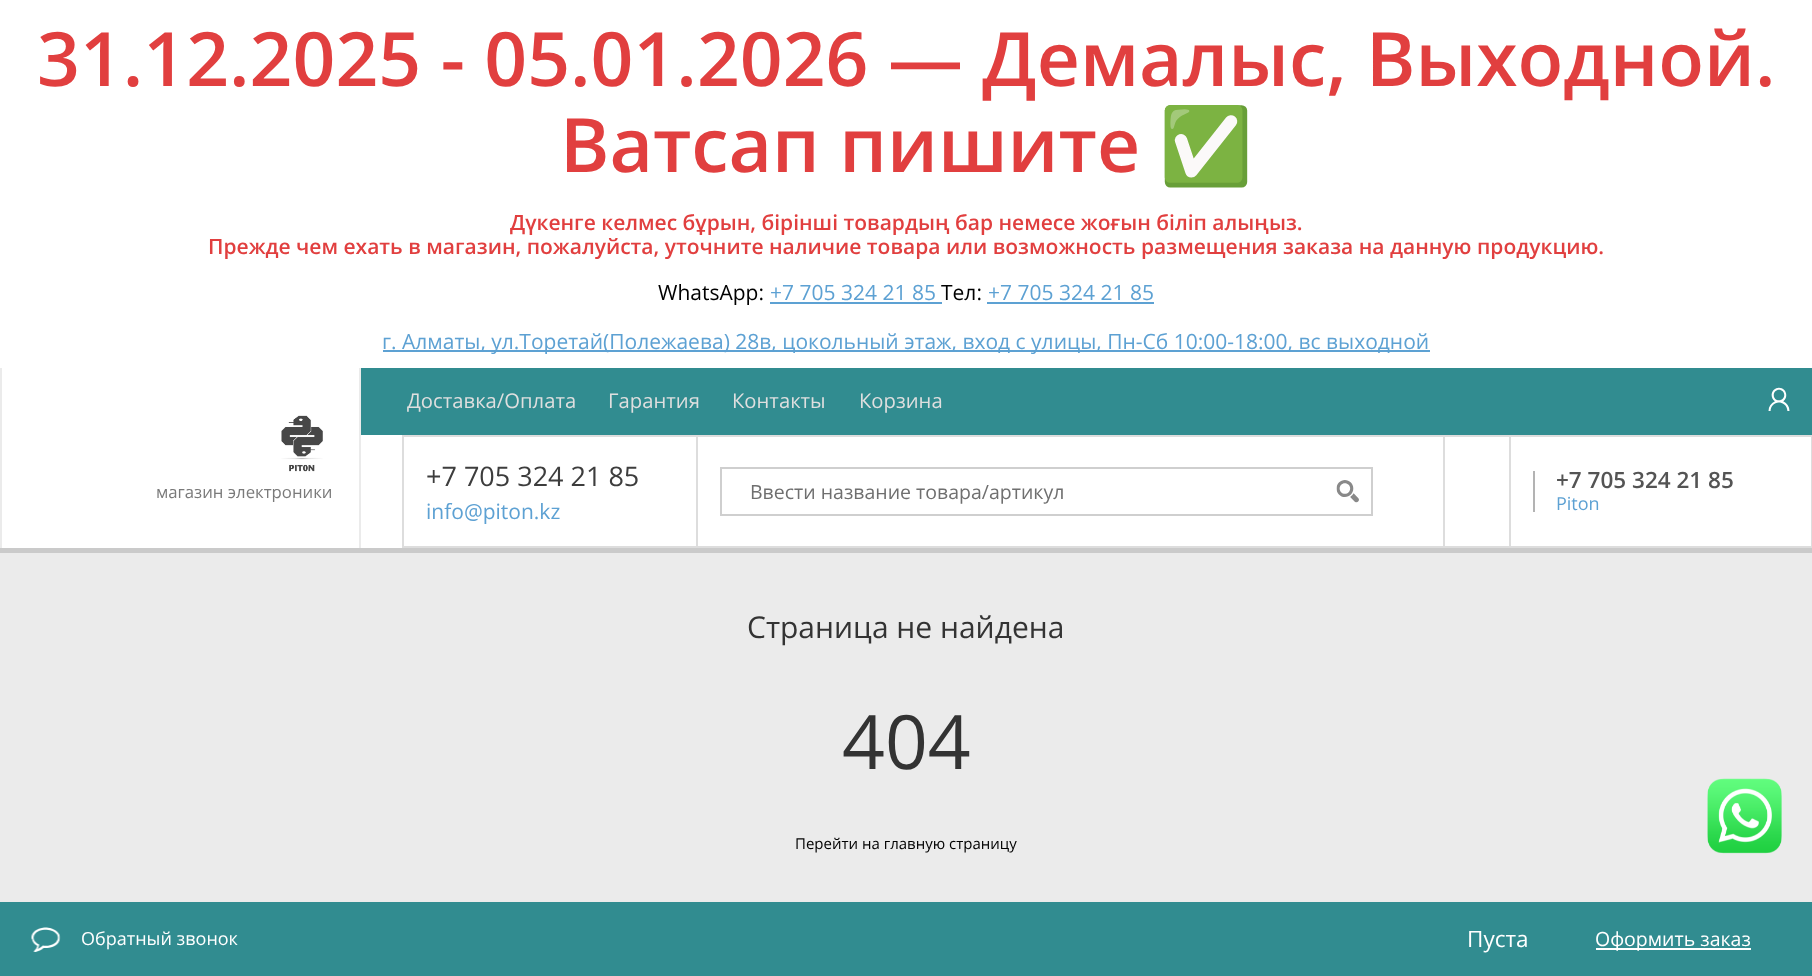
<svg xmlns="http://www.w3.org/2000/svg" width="1812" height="976">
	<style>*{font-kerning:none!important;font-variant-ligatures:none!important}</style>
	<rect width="100%" height="100%" fill="#EBEBEB" />
	<rect x="0" y="0" width="1812" height="368" fill="#FFFFFF" />
	<g font-family="Open Sans" font-size="75" font-weight="600" fill="#E13F3F">
		<text x="37" y="86">31.12.2025 - 05.01.2026 — Демалыс, Выходной.</text>
		<text x="560" y="172">Ватсап пишите</text>
	</g>
	<text x="1159" y="172" font-family="Noto Color Emoji" font-size="75" font-weight="700" fill="#E13F3F">✅</text>
	<g font-family="Open Sans" font-size="21" font-weight="600" fill="#E13F3F">
		<text x="510" y="230">Дүкенге келмес бұрын, бірінші товардың бар немесе жоғын біліп алыңыз.</text>
		<text x="208" y="254">Прежде чем ехать в магазин, пожалуйста, уточните наличие товара или возможность размещения заказа на данную продукцию.</text>
	</g>
	<text x="658" y="300" font-family="Open Sans" font-size="21" fill="#000000">WhatsApp:</text>
	<text x="770" y="300" font-family="Open Sans" font-size="21" fill="#5DA1D3">+7 705 324 21 85</text>
	<rect x="770" y="302" width="172" height="2" fill="#5DA1D3" />
	<text x="941" y="300" font-family="Open Sans" font-size="21" fill="#000000">Тел:</text>
	<text x="988" y="300" font-family="Open Sans" font-size="21" fill="#5DA1D3">+7 705 324 21 85</text>
	<rect x="987" y="302" width="167" height="2" fill="#5DA1D3" />
	<rect x="383" y="350" width="1047" height="2" fill="#5DA1D3" />
	<text x="382" y="349" font-family="Open Sans" font-size="21" fill="#5DA1D3">г. Алматы, ул.Торетай(Полежаева) 28в, цокольный этаж, вход с улицы, Пн-Сб 10:00-18:00, вс выходной</text>
	<rect x="361" y="368" width="1451" height="67" fill="#318C90" />
	<g font-family="Open Sans" font-size="20.25" fill="#DFDFDF">
		<text x="407" y="408">Доставка/Оплата</text>
		<text x="608" y="408">Гарантия</text>
		<text x="732" y="408">Контакты</text>
		<text x="859" y="408">Корзина</text>
	</g>
	<image x="1768" y="387" width="22" height="24" href="assets/img1.png" />
	<rect x="2" y="368" width="357" height="180" fill="#FFFFFF" />
	<image x="281" y="415" width="42" height="57" href="assets/img2.png" />
	<text x="156" y="498" font-family="Open Sans" font-size="16.75" fill="#7A7A7A">магазин электроники</text>
	<rect x="361" y="435" width="1450" height="113" fill="#FFFFFF" />
	<rect x="1509" y="435" width="303" height="2" fill="#DDDDDD" />
	<rect x="1811" y="435" width="1" height="113" fill="#DDDDDD" />
	<rect x="1509" y="546" width="303" height="2" fill="#DDDDDD" />
	<rect x="1509" y="435" width="2" height="113" fill="#DDDDDD" />
	<rect x="1443" y="435" width="68" height="2" fill="#DDDDDD" />
	<rect x="1443" y="546" width="68" height="2" fill="#DDDDDD" />
	<rect x="1443" y="435" width="2" height="113" fill="#DDDDDD" />
	<rect x="696" y="435" width="749" height="2" fill="#DDDDDD" />
	<rect x="696" y="546" width="749" height="2" fill="#DDDDDD" />
	<rect x="696" y="435" width="2" height="113" fill="#DDDDDD" />
	<rect x="402" y="435" width="296" height="2" fill="#DDDDDD" />
	<rect x="402" y="546" width="296" height="2" fill="#DDDDDD" />
	<rect x="402" y="435" width="2" height="113" fill="#DDDDDD" />
	<text x="426" y="486" font-family="Open Sans" font-size="27" fill="#3D3D3D">+7 705 324 21 85</text>
	<text x="426" y="519" font-family="Open Sans" font-size="21" fill="#5DA1D3">info@piton.kz</text>
	<rect x="721" y="468" width="651" height="47" fill="none" stroke="#CFCFCF" stroke-width="2" />
	<text x="750" y="499" font-family="Open Sans" font-size="19.5" fill="#6F6F6F">Ввести название товара/артикул</text>
	<image x="1336" y="480" width="23" height="23" href="assets/img3.png" />
	<rect x="1533" y="471" width="2" height="41" fill="#B3B3B3" />
	<text x="1556" y="488" font-family="Open Sans" font-size="22.5" font-weight="600" fill="#545454">+7 705 324 21 85</text>
	<text x="1556" y="510" font-family="Open Sans" font-size="18" fill="#5DA1D3">Piton</text>
	<rect x="0" y="548" width="1812" height="5" fill="#CACACA" />
	<text x="747" y="638" font-family="Open Sans" font-size="30" fill="#333333">Страница не найдена</text>
	<text x="842" y="769" font-family="Open Sans" font-size="75" fill="#333333">404</text>
	<text x="795" y="849" font-family="Open Sans" font-size="15" fill="#000000">Перейти на главную страницу</text>
	<image x="1707" y="778" width="75" height="76" href="assets/img4.png" />
	<rect x="0" y="902" width="1812" height="74" fill="#318C90" />
	<image x="31" y="927" width="30" height="25" href="assets/img5.png" />
	<text x="81" y="945" font-family="Open Sans" font-size="18" fill="#FFFFFF">Обратный звонок</text>
	<text x="1467" y="947" font-family="Open Sans" font-size="22.5" fill="#FFFFFF">Пуста</text>
	<rect x="1596" y="948" width="155" height="2" fill="#FFFFFF" />
	<text x="1595" y="946" font-family="Open Sans" font-size="19.5" fill="#FFFFFF">Оформить заказ</text>
</svg>
